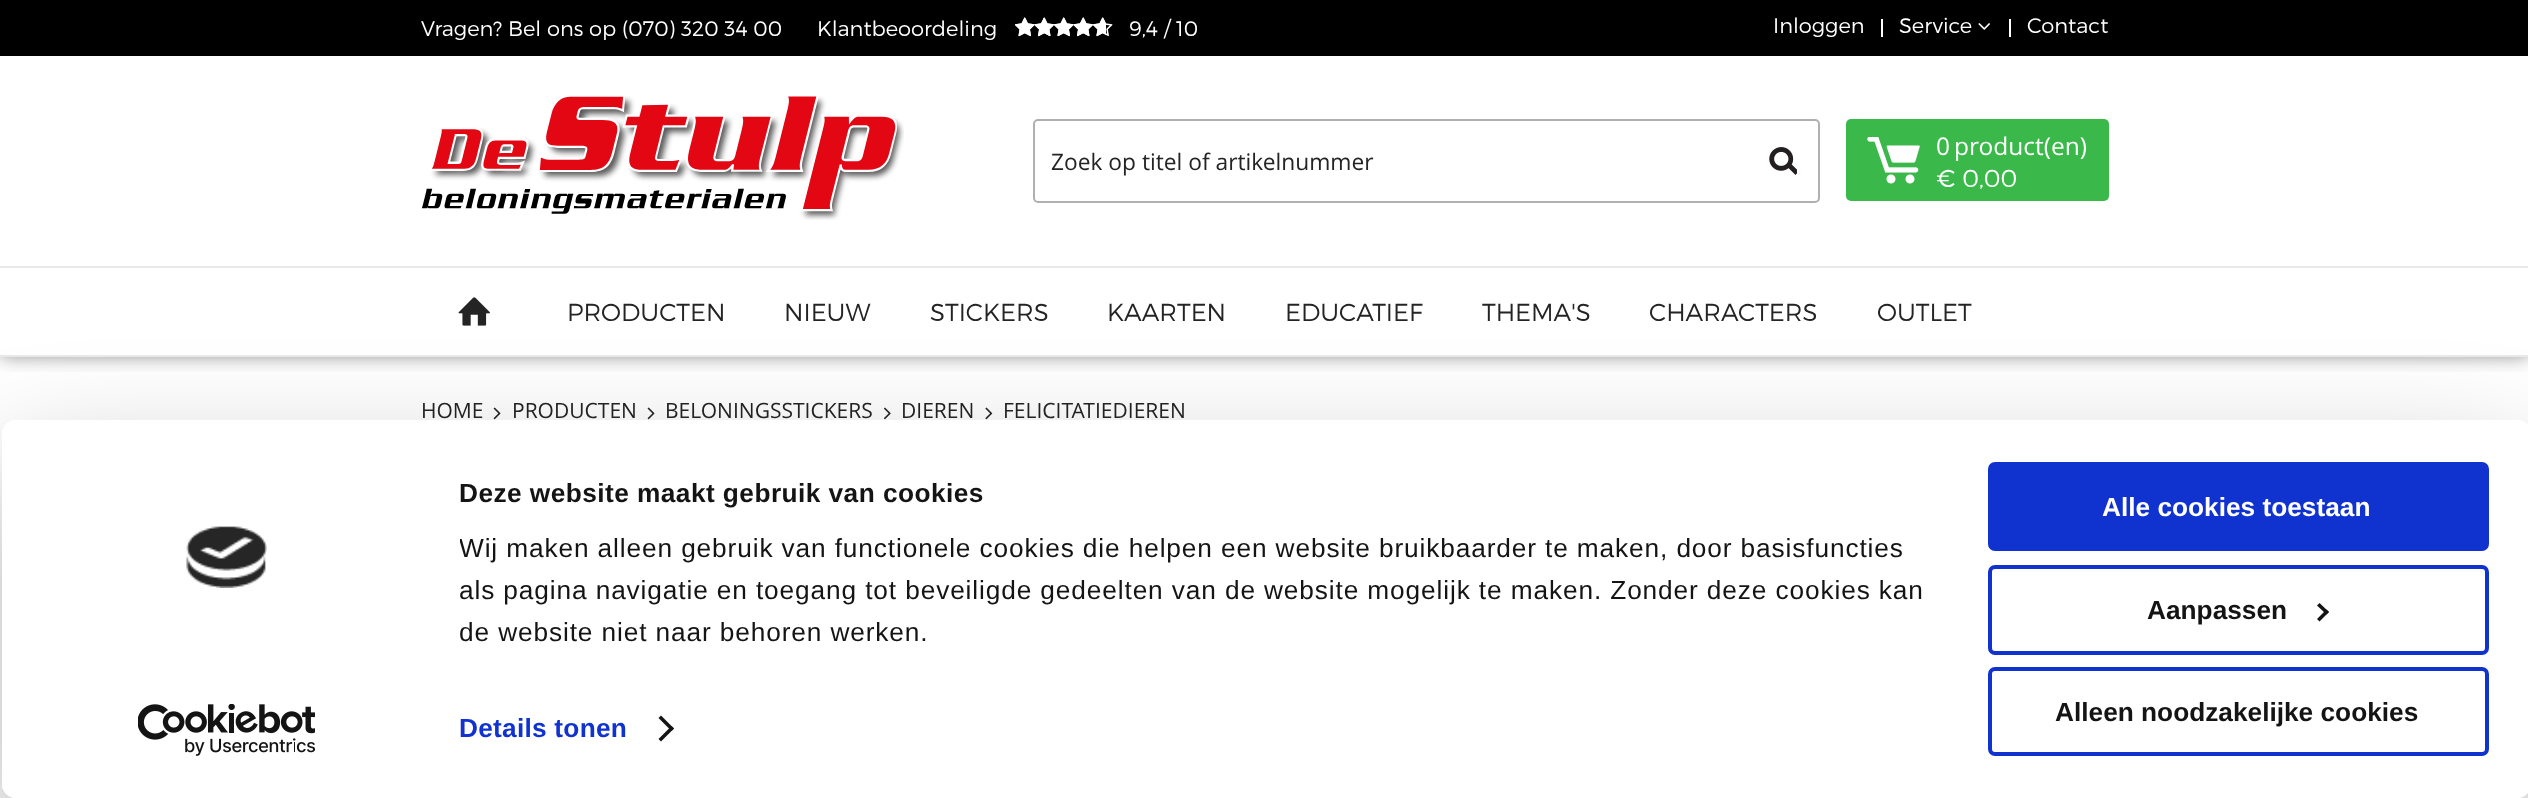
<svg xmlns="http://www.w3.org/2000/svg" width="2528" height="798">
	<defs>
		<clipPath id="clip1"><rect x="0" y="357" width="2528" height="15" /></clipPath>
		<clipPath id="clip2"><path d="M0 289H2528V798H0ZM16 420H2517C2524.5 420 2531 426.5 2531 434V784C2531 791.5 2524.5 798 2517 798H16C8.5 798 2 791.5 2 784V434C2 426.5 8.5 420 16 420Z" clip-rule="evenodd" /></clipPath>
		<clipPath id="clip3"><rect x="460" y="473" width="1518" height="180" /></clipPath>
	</defs>
	<rect width="100%" height="100%" fill="#FFFFFF" />
	<g clip-path="url(#clip1)">
		<rect x="0" y="56" width="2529" height="301" fill="#000000" fill-opacity="0.4" filter="blur(9px)" />
	</g>
	<rect x="0" y="0" width="2528" height="56" fill="#000000" />
	<g font-family="Montserrat" font-size="21" font-weight="300" fill="#FFFFFF">
		<text x="421" y="36">Vragen? Bel ons op (070) 320 34 00</text>
		<text x="817" y="36">Klantbeoordeling</text>
	</g>
	<image x="1015" y="17" width="98" height="20" href="assets/img1.png" />
	<image x="1015" y="17" width="91" height="20" href="assets/img2.png" />
	<g font-family="Montserrat" font-size="21" font-weight="300" fill="#FFFFFF">
		<text x="1129" y="36">9,4 / 10</text>
		<text x="1773" y="33">Inloggen</text>
	</g>
	<rect x="1881" y="19" width="2" height="18" fill="#FFFFFF" />
	<text x="1899" y="33" font-family="Montserrat" font-size="21" font-weight="300" fill="#FFFFFF">Service</text>
	<image x="1978" y="23" width="12" height="7" href="assets/img3.png" />
	<rect x="2009" y="19" width="2" height="18" fill="#FFFFFF" />
	<text x="2027" y="33" font-family="Montserrat" font-size="21" font-weight="300" fill="#FFFFFF">Contact</text>
	<image x="422" y="96" width="482" height="124" href="assets/img4.png" />
	<rect x="1034" y="120" width="785" height="82" rx="4" fill="none" stroke="#B0B0B0" stroke-width="2" />
	<text x="1051" y="170" font-family="Open Sans" font-size="22.75" fill="#242424">Zoek op titel of artikelnummer</text>
	<image x="1769" y="147" width="28" height="28" href="assets/img5.png" />
	<rect x="1846" y="119" width="263" height="82" rx="5" fill="#3BB84A" />
	<image x="1867" y="137" width="53" height="47" href="assets/img6.png" />
	<g font-family="Open Sans" font-size="24.5" fill="#FFFFFF">
		<text x="1936" y="155">0</text>
		<text x="1954" y="155">product(en)</text>
	</g>
	<text x="1936" y="187" font-family="Montserrat" font-size="24.5" font-weight="300" fill="#FFFFFF">€ 0,00</text>
	<rect x="0" y="266" width="2528" height="2" fill="#E9E9E9" />
	<rect x="0" y="355" width="2528" height="2" fill="#E9E9E9" />
	<image x="458" y="297" width="32" height="29" href="assets/img7.png" />
	<g font-family="Montserrat" font-size="24.5" font-weight="300" fill="#242424">
		<text x="567" y="321">PRODUCTEN</text>
		<text x="784" y="321">NIEUW</text>
		<text x="930" y="321">STICKERS</text>
		<text x="1107" y="321">KAARTEN</text>
		<text x="1285" y="321">EDUCATIEF</text>
		<text x="1482" y="321">THEMA'S</text>
		<text x="1649" y="321">CHARACTERS</text>
		<text x="1877" y="321">OUTLET</text>
	</g>
	<text x="421" y="418" font-family="Open Sans" font-size="21" fill="#242424">HOME</text>
	<image x="493" y="407" width="8" height="13" href="assets/img8.png" />
	<text x="512" y="418" font-family="Open Sans" font-size="21" fill="#242424">PRODUCTEN</text>
	<image x="647" y="407" width="8" height="13" href="assets/img8.png" />
	<text x="665" y="418" font-family="Open Sans" font-size="21" fill="#242424">BELONINGSSTICKERS</text>
	<image x="883" y="407" width="8" height="13" href="assets/img9.png" />
	<text x="901" y="418" font-family="Open Sans" font-size="21" fill="#242424">DIEREN</text>
	<image x="985" y="407" width="8" height="13" href="assets/img10.png" />
	<text x="1003" y="418" font-family="Open Sans" font-size="21" fill="#242424">FELICITATIEDIEREN</text>
	<g clip-path="url(#clip2)">
		<rect x="2" y="473" width="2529" height="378" rx="14" fill="#000000" fill-opacity="0.3" filter="blur(61px)" />
	</g>
	<rect x="2" y="420" width="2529" height="378" rx="14" fill="#FFFFFF" />
	<image x="186" y="526" width="81" height="62" href="assets/img11.png" />
	<image x="138" y="704" width="177" height="52" href="assets/img12.png" />
	<text x="459" y="502" font-family="Liberation Sans" font-size="26.25" font-weight="700" letter-spacing="0.45" fill="#141414">Deze website maakt gebruik van cookies</text>
	<g clip-path="url(#clip3)">
		<text x="459" y="557" font-family="Liberation Sans" font-size="26.25" letter-spacing="0.88" fill="#141414">Wij maken alleen gebruik van functionele cookies die helpen een website bruikbaarder te maken, door basisfuncties</text>
	</g>
	<text x="459" y="599" font-family="Liberation Sans" font-size="26.25" letter-spacing="0.88" fill="#141414">als pagina navigatie en toegang tot beveiligde gedeelten van de website mogelijk te maken. Zonder deze cookies kan</text>
	<g clip-path="url(#clip3)">
		<text x="459" y="641" font-family="Liberation Sans" font-size="26.25" letter-spacing="0.88" fill="#141414">de website niet naar behoren werken.</text>
	</g>
	<text x="459" y="737" font-family="Liberation Sans" font-size="26.25" font-weight="700" letter-spacing="0.25" fill="#1032CF">Details tonen</text>
	<path d="M661 715.5L674 728.5L671.5 731L658.5 718Z" fill="#141414" />
	<path d="M671.5 726L674 728.5L661 741.5L658.5 739Z" fill="#141414" />
	<rect x="1990" y="464" width="497" height="85" rx="5" fill="#1032CF" stroke="#1032CF" stroke-width="4" />
	<text x="2102" y="516" font-family="Liberation Sans" font-size="26.25" font-weight="700" fill="#FFFFFF">Alle cookies toestaan</text>
	<rect x="1990" y="567" width="497" height="86" rx="5" fill="none" stroke="#1032CF" stroke-width="4" />
	<text x="2147" y="619" font-family="Liberation Sans" font-size="26.25" font-weight="700" fill="#141414">Aanpassen</text>
	<path d="M2319.5 603L2329 612L2326.5 614.5L2317 605.5Z" fill="#141414" />
	<path d="M2326.5 609.5L2329 612L2319.5 621.5L2317 619Z" fill="#141414" />
	<rect x="1990" y="669" width="497" height="85" rx="5" fill="none" stroke="#1032CF" stroke-width="4" />
	<text x="2055" y="721" font-family="Liberation Sans" font-size="26.25" font-weight="700" fill="#141414">Alleen noodzakelijke cookies</text>
</svg>
